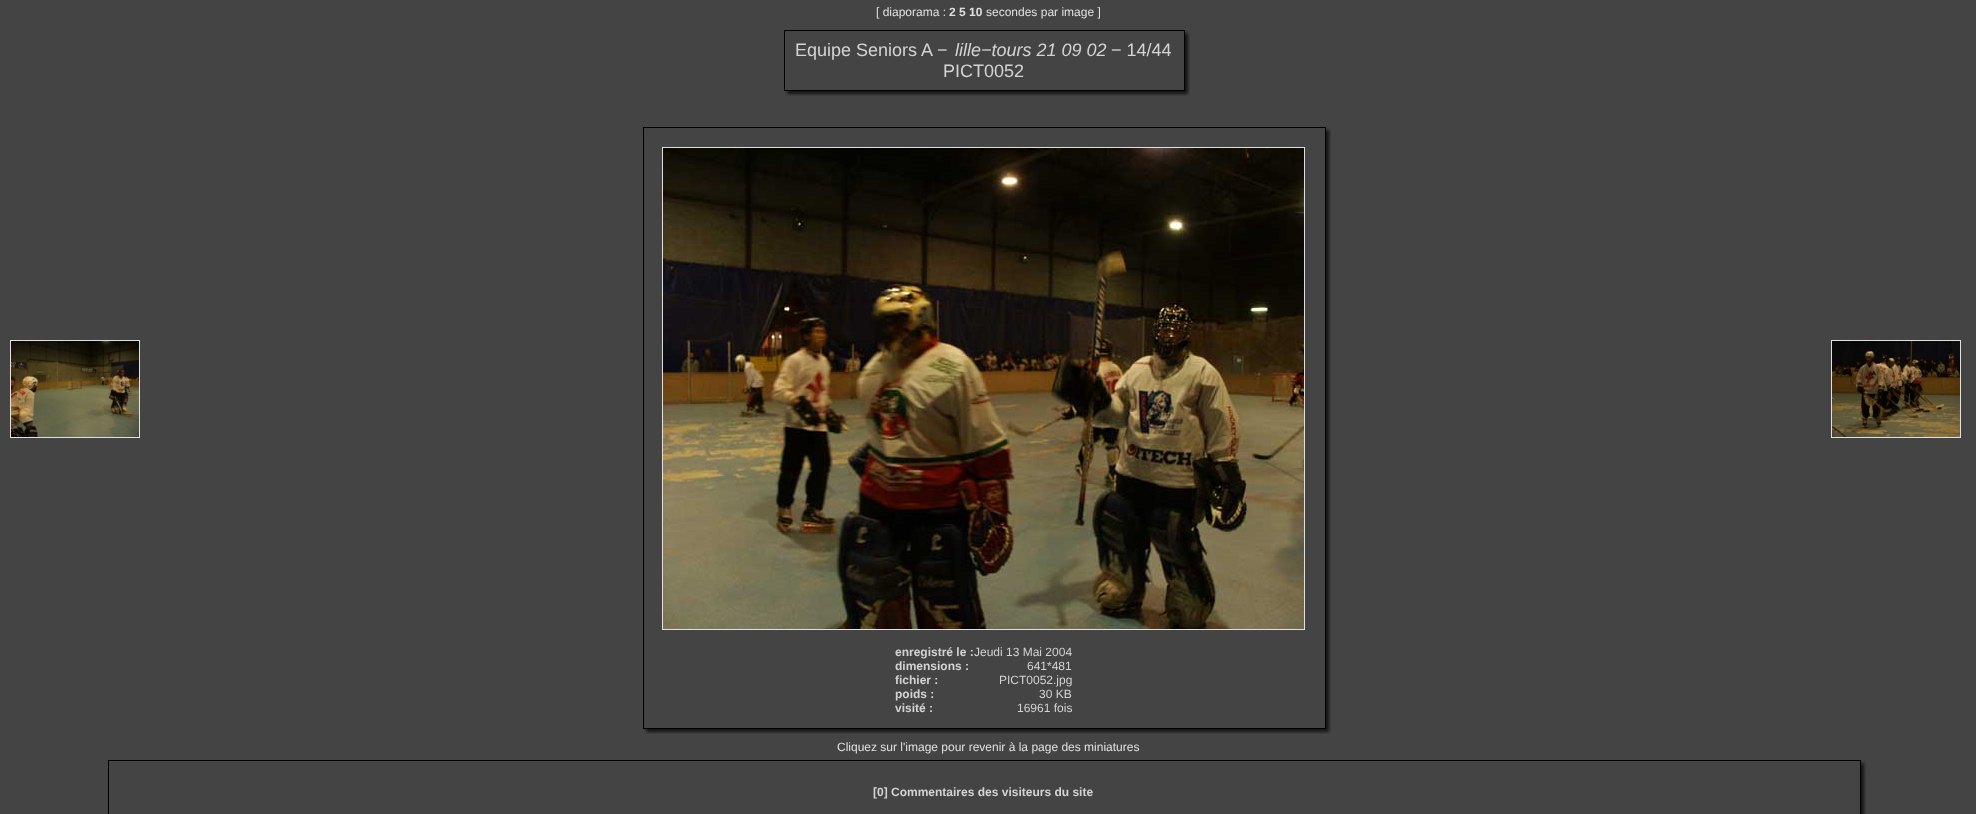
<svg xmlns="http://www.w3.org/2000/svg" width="1976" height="814">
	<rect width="100%" height="100%" fill="#444444" />
	<text x="876" y="16" font-family="Liberation Sans" font-size="12" fill="#E0E0E0">[ diaporama :</text>
	<text x="949" y="16" font-family="Liberation Sans" font-size="12" font-weight="700" fill="#E0E0E0">2 5 10</text>
	<text x="986" y="16" font-family="Liberation Sans" font-size="12" fill="#E0E0E0">secondes par image ]</text>
	<rect x="10.5" y="340.5" width="129" height="97" fill="none" stroke="#E0E0E0" />
	<image x="11" y="341" width="128" height="96" href="assets/img1.png" />
	<image x="779" y="26" width="14" height="14" href="assets/img2.png" />
	<rect x="793" y="30" width="381" height="1" fill="#000000" />
	<image x="1174" y="27" width="16" height="13" href="assets/img3.png" />
	<rect x="784" y="40" width="1" height="42" fill="#000000" />
	<text x="795" y="56" font-family="Liberation Sans" font-size="18" fill="#D3D3D3">Equipe Seniors A −</text>
	<text x="955" y="56" font-family="Liberation Sans" font-size="18" font-style="italic" fill="#D3D3D3">lille−tours 21 09 02</text>
	<g font-family="Liberation Sans" font-size="18" fill="#D3D3D3">
		<text x="1111" y="56">− 14/44</text>
		<text x="943" y="77">PICT0052</text>
	</g>
	<image x="1184" y="40" width="6" height="42" href="assets/img4.png" />
	<image x="783" y="82" width="10" height="14" href="assets/img5.png" />
	<image x="793" y="90" width="381" height="6" href="assets/img6.png" />
	<image x="1174" y="82" width="16" height="14" href="assets/img7.png" />
	<image x="638" y="123" width="14" height="14" href="assets/img2.png" />
	<rect x="652" y="127" width="663" height="1" fill="#000000" />
	<image x="1315" y="124" width="16" height="13" href="assets/img3.png" />
	<rect x="643" y="137" width="1" height="583" fill="#000000" />
	<rect x="662.5" y="147.5" width="642" height="482" fill="none" stroke="#E0E0E0" />
	<image x="663" y="148" width="641" height="481" href="assets/img8.png" />
	<text x="895" y="656" font-family="Liberation Sans" font-size="12" font-weight="700" fill="#D3D3D3">enregistré le :</text>
	<text x="974" y="656" font-family="Liberation Sans" font-size="12" fill="#D3D3D3">Jeudi 13 Mai 2004</text>
	<text x="895" y="670" font-family="Liberation Sans" font-size="12" font-weight="700" fill="#D3D3D3">dimensions :</text>
	<text x="1027" y="670" font-family="Liberation Sans" font-size="12" fill="#D3D3D3">641*481</text>
	<text x="895" y="684" font-family="Liberation Sans" font-size="12" font-weight="700" fill="#D3D3D3">fichier :</text>
	<text x="999" y="684" font-family="Liberation Sans" font-size="12" fill="#D3D3D3">PICT0052.jpg</text>
	<text x="895" y="698" font-family="Liberation Sans" font-size="12" font-weight="700" fill="#D3D3D3">poids :</text>
	<text x="1039" y="698" font-family="Liberation Sans" font-size="12" fill="#D3D3D3">30 KB</text>
	<text x="895" y="712" font-family="Liberation Sans" font-size="12" font-weight="700" fill="#D3D3D3">visité :</text>
	<text x="1017" y="712" font-family="Liberation Sans" font-size="12" fill="#D3D3D3">16961 fois</text>
	<image x="1325" y="137" width="6" height="583" href="assets/img9.png" />
	<image x="642" y="720" width="10" height="14" href="assets/img5.png" />
	<image x="652" y="728" width="663" height="6" href="assets/img10.png" />
	<image x="1315" y="720" width="16" height="14" href="assets/img7.png" />
	<text x="837" y="751" font-family="Liberation Sans" font-size="12" fill="#E0E0E0">Cliquez sur l'image pour revenir à la page des miniatures</text>
	<rect x="1831.5" y="340.5" width="129" height="97" fill="none" stroke="#E0E0E0" />
	<image x="1832" y="341" width="128" height="96" href="assets/img11.png" />
	<image x="103" y="756" width="14" height="14" href="assets/img2.png" />
	<rect x="117" y="760" width="1733" height="1" fill="#000000" />
	<image x="1850" y="757" width="16" height="13" href="assets/img3.png" />
	<rect x="108" y="770" width="1" height="44" fill="#000000" />
	<text x="873" y="796" font-family="Liberation Sans" font-size="12" font-weight="700" fill="#D3D3D3">[0] Commentaires des visiteurs du site</text>
	<image x="1860" y="770" width="6" height="39" href="assets/img12.png" />
	<image x="1860" y="809" width="6" height="5" href="assets/img13.png" />
</svg>
